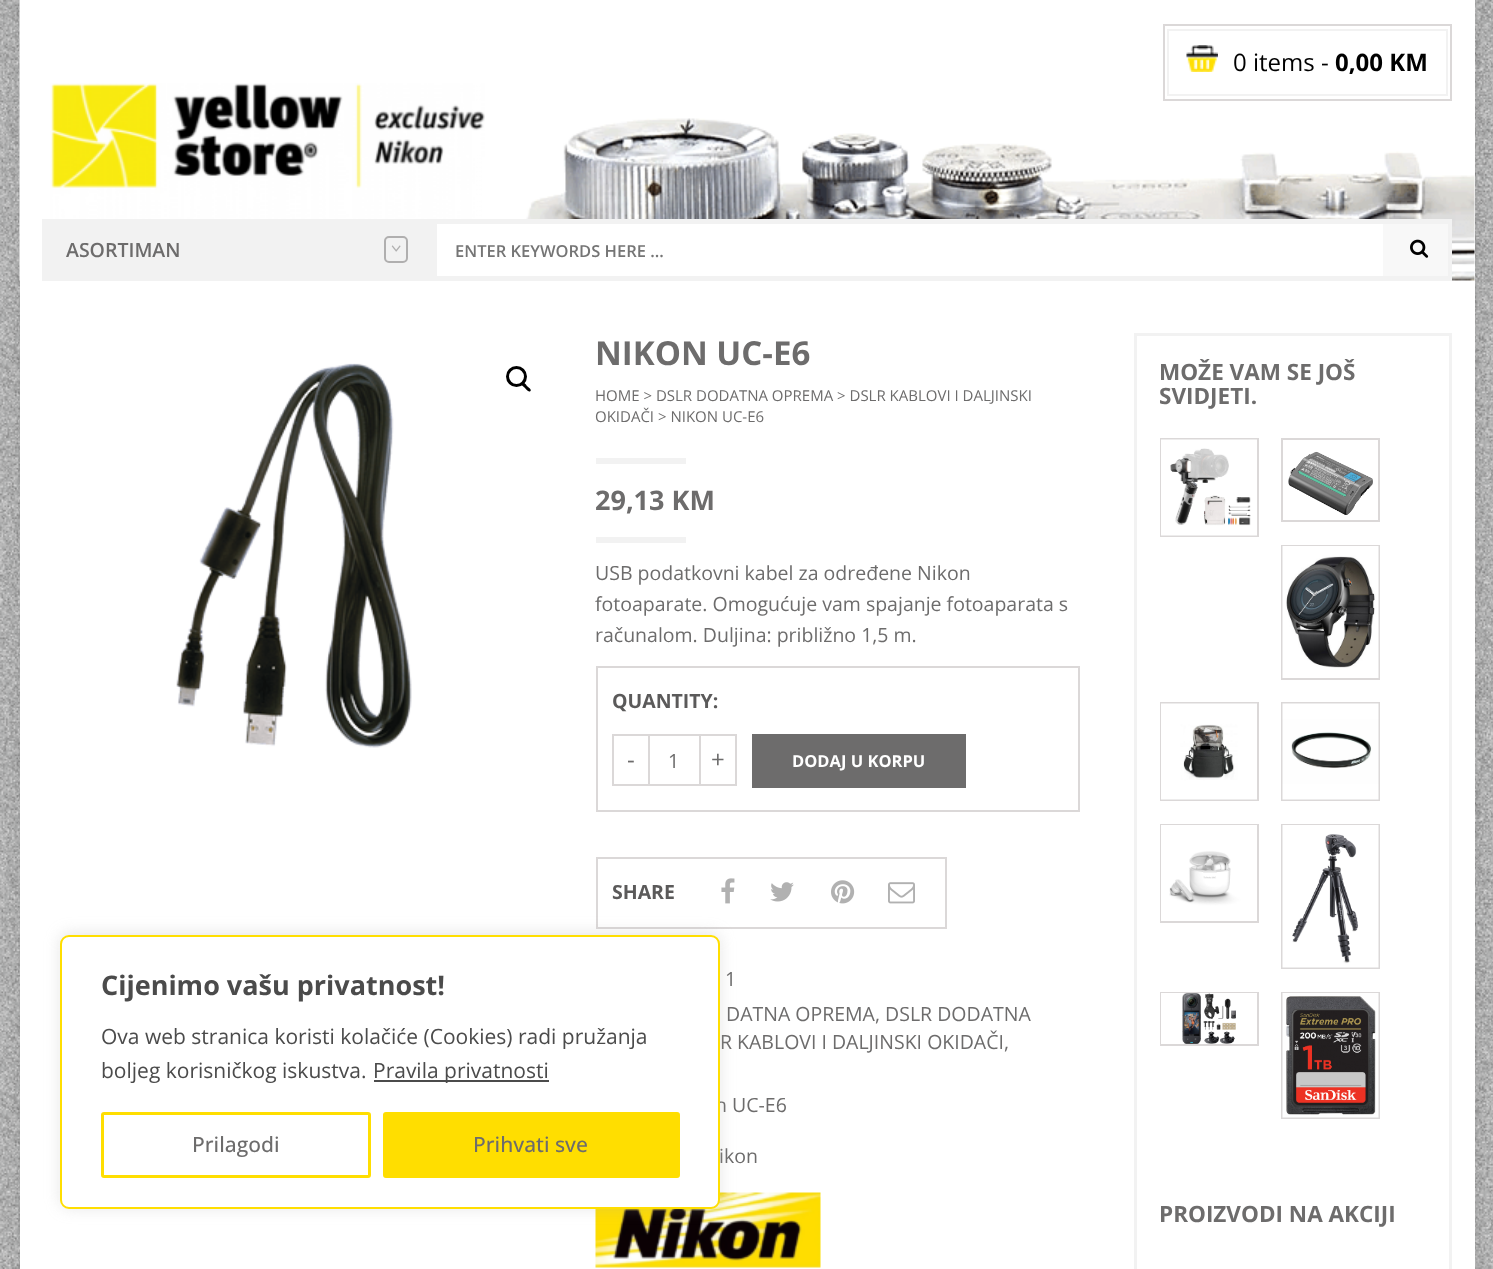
<svg xmlns="http://www.w3.org/2000/svg" width="1493" height="1269">
	<rect width="100%" height="100%" fill="#FFFFFF" />
	<image x="0" y="0" width="1493" height="1269" href="assets/img1.png" />
	<rect x="20" y="-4" width="1455" height="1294" fill="#000000" fill-opacity="0.1" filter="blur(7px)" />
	<rect x="20" y="0" width="1455" height="1269" fill="#FFFFFF" />
	<image x="19" y="0" width="1456" height="281" href="assets/img2.png" />
	<rect x="1164" y="25" width="287" height="75" fill="none" stroke="#DBD8D8" stroke-width="2" />
	<rect x="1168" y="30" width="279" height="65" fill="none" stroke="#F2F2F2" stroke-width="2" />
	<image x="1186" y="45" width="32" height="27" href="assets/img3.png" />
	<text x="1233" y="71" font-family="Open Sans" font-size="24" fill="#000000">0 items -</text>
	<text x="1335" y="71" font-family="Open Sans" font-size="24" font-weight="700" fill="#000000">0,00 KM</text>
	<image x="50" y="83" width="435" height="136" href="assets/img4.png" />
	<rect x="42" y="219" width="390" height="62" fill="#F2F2F2" />
	<text x="66" y="257" font-family="Open Sans" font-size="19.5" font-weight="600" fill="#6D6C6C">ASORTIMAN</text>
	<rect x="385" y="237" width="22" height="25" rx="4" fill="none" stroke="#B0AFAF" stroke-width="2" />
	<image x="391" y="245" width="10" height="7" href="assets/img5.png" />
	<rect x="434.5" y="221.5" width="1015" height="57" fill="none" stroke="#F2F2F2" stroke-width="5" />
	<rect x="487" y="224" width="896" height="52" fill="#FFFFFF" />
	<text x="455" y="257" font-family="Open Sans" font-size="16.5" font-weight="600" fill="#757575">ENTER KEYWORDS HERE ...</text>
	<rect x="1383" y="224" width="65" height="52" fill="#F8F8F8" />
	<image x="1410" y="239" width="19" height="19" href="assets/img6.png" />
	<image x="176" y="363" width="236" height="385" href="assets/img7.png" />
	<circle cx="516.5" cy="376.5" r="9" fill="none" stroke="#000000" stroke-width="3" />
	<path d="M522 383C523.5 381 526.5 385 527 386C528 387 532 389.5 530.5 391C528.5 393 526 389 525 388C524 387 520 384.5 522 383Z" fill="#000000" />
	<text x="595" y="365" font-family="Open Sans" font-size="33" font-weight="700" fill="#6D6C6C">NIKON UC-E6</text>
	<g font-family="Open Sans" font-size="15" fill="#6D6C6C">
		<text x="595" y="401">HOME &gt; DSLR DODATNA OPREMA &gt; DSLR KABLOVI I DALJINSKI</text>
		<text x="595" y="422">OKIDAČI &gt; NIKON UC-E6</text>
	</g>
	<rect x="596" y="458" width="90" height="6" fill="#F2F2F2" />
	<text x="595" y="510" font-family="Open Sans" font-size="27" font-weight="700" fill="#6D6C6C">29,13 KM</text>
	<rect x="596" y="537" width="90" height="6" fill="#F2F2F2" />
	<g font-family="Open Sans" font-size="19.5" fill="#6D6C6C">
		<text x="595" y="580">USB podatkovni kabel za određene Nikon</text>
		<text x="595" y="611">fotoaparate. Omogućuje vam spajanje fotoaparata s</text>
		<text x="595" y="642">računalom. Duljina: približno 1,5 m.</text>
	</g>
	<rect x="597" y="667" width="482" height="144" fill="none" stroke="#DBD8D8" stroke-width="2" />
	<text x="612" y="708" font-family="Open Sans" font-size="19.5" font-weight="700" fill="#5B5A5A">QUANTITY:</text>
	<rect x="613" y="735" width="36" height="50" fill="none" stroke="#DBD8D8" stroke-width="2" />
	<text x="627" y="768" font-family="Open Sans" font-size="24" fill="#6D6C6C">-</text>
	<rect x="649" y="735" width="51" height="50" fill="none" stroke="#DBD8D8" stroke-width="2" />
	<text x="668" y="768" font-family="Open Sans" font-size="19.5" fill="#6D6C6C">1</text>
	<rect x="700" y="735" width="36" height="50" fill="none" stroke="#DBD8D8" stroke-width="2" />
	<text x="711" y="768" font-family="Open Sans" font-size="24" fill="#6D6C6C">+</text>
	<rect x="752" y="734" width="214" height="54" fill="#6D6C6C" />
	<text x="792" y="767" font-family="Open Sans" font-size="16.5" font-weight="700" fill="#FFFFFF">DODAJ U KORPU</text>
	<rect x="597" y="858" width="349" height="70" fill="none" stroke="#DBD8D8" stroke-width="2" />
	<text x="612" y="899" font-family="Open Sans" font-size="19.5" font-weight="700" fill="#5B5A5A">SHARE</text>
	<image x="721" y="878" width="14" height="26" href="assets/img8.png" />
	<image x="770" y="882" width="24" height="20" href="assets/img9.png" />
	<image x="831" y="880" width="24" height="24" href="assets/img10.png" />
	<image x="888" y="882" width="27" height="22" href="assets/img11.png" />
	<g font-family="Open Sans" font-size="19.5" fill="#6D6C6C">
		<text x="725" y="986">1</text>
		<text x="726" y="1021">DATNA OPREMA, DSLR DODATNA</text>
		<text x="720" y="1049">R KABLOVI I DALJINSKI OKIDAČI,</text>
		<text x="715" y="1112">n UC-E6</text>
		<text x="719" y="1163">ikon</text>
	</g>
	<image x="595" y="1192" width="226" height="76" href="assets/img12.png" />
	<rect x="1135.5" y="334.5" width="315" height="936" fill="none" stroke="#F2F2F2" stroke-width="3" />
	<g font-family="Open Sans" font-size="22.5" font-weight="700" fill="#6D6C6C">
		<text x="1159" y="380">MOŽE VAM SE JOŠ</text>
		<text x="1159" y="404">SVIDJETI.</text>
	</g>
	<rect x="1161" y="439" width="97" height="97" fill="none" stroke="#DBD8D8" stroke-width="2" />
	<image x="1161" y="439" width="96" height="97" href="assets/img13.png" />
	<rect x="1282" y="439" width="97" height="82" fill="none" stroke="#DBD8D8" stroke-width="2" />
	<image x="1288" y="451" width="85" height="64" href="assets/img14.png" />
	<rect x="1282" y="546" width="97" height="133" fill="none" stroke="#DBD8D8" stroke-width="2" />
	<image x="1282" y="546" width="97" height="132" href="assets/img15.png" />
	<rect x="1161" y="703" width="97" height="97" fill="none" stroke="#DBD8D8" stroke-width="2" />
	<image x="1161" y="703" width="96" height="97" href="assets/img16.png" />
	<rect x="1282" y="703" width="97" height="97" fill="none" stroke="#DBD8D8" stroke-width="2" />
	<image x="1282" y="703" width="97" height="97" href="assets/img17.png" />
	<rect x="1161" y="825" width="97" height="97" fill="none" stroke="#DBD8D8" stroke-width="2" />
	<image x="1161" y="825" width="96" height="96" href="assets/img18.png" />
	<rect x="1282" y="825" width="97" height="143" fill="none" stroke="#DBD8D8" stroke-width="2" />
	<image x="1282" y="825" width="97" height="143" href="assets/img19.png" />
	<rect x="1161" y="993" width="97" height="52" fill="none" stroke="#DBD8D8" stroke-width="2" />
	<image x="1161" y="993" width="96" height="51" href="assets/img20.png" />
	<rect x="1282" y="993" width="97" height="125" fill="none" stroke="#DBD8D8" stroke-width="2" />
	<image x="1282" y="993" width="97" height="125" href="assets/img21.png" />
	<text x="1159" y="1222" font-family="Open Sans" font-size="22.5" font-weight="700" fill="#6D6C6C">PROIZVODI NA AKCIJI</text>
	<rect x="60" y="933" width="660" height="275" rx="9" fill="#ACABAB" fill-opacity="0.3" filter="blur(7.5px)" />
	<rect x="61" y="936" width="658" height="272" rx="8" fill="#FFFFFF" stroke="#FFDE00" stroke-width="2" />
	<text x="101" y="995" font-family="Open Sans" font-size="27" font-weight="700" fill="#4B4B4B">Cijenimo vašu privatnost!</text>
	<g font-family="Open Sans" font-size="21" fill="#4B4B4B">
		<text x="101" y="1044">Ova web stranica koristi kolačiće (Cookies) radi pružanja</text>
		<text x="101" y="1078">boljeg korisničkog iskustva.</text>
	</g>
	<rect x="374" y="1080" width="175" height="2" fill="#4B4B4B" />
	<text x="373" y="1078" font-family="Open Sans" font-size="21" fill="#4B4B4B">Pravila privatnosti</text>
	<rect x="102.5" y="1113.5" width="267" height="63" rx="1.5" fill="none" stroke="#FFDE00" stroke-width="3" />
	<text x="192" y="1152" font-family="Open Sans" font-size="21" font-weight="500" fill="#6D6C6C">Prilagodi</text>
	<rect x="384.5" y="1113.5" width="294" height="63" rx="1.5" fill="#FFDE00" stroke="#FFDE00" stroke-width="3" />
	<text x="473" y="1152" font-family="Open Sans" font-size="21" font-weight="500" fill="#6D6C6C">Prihvati sve</text>
</svg>
